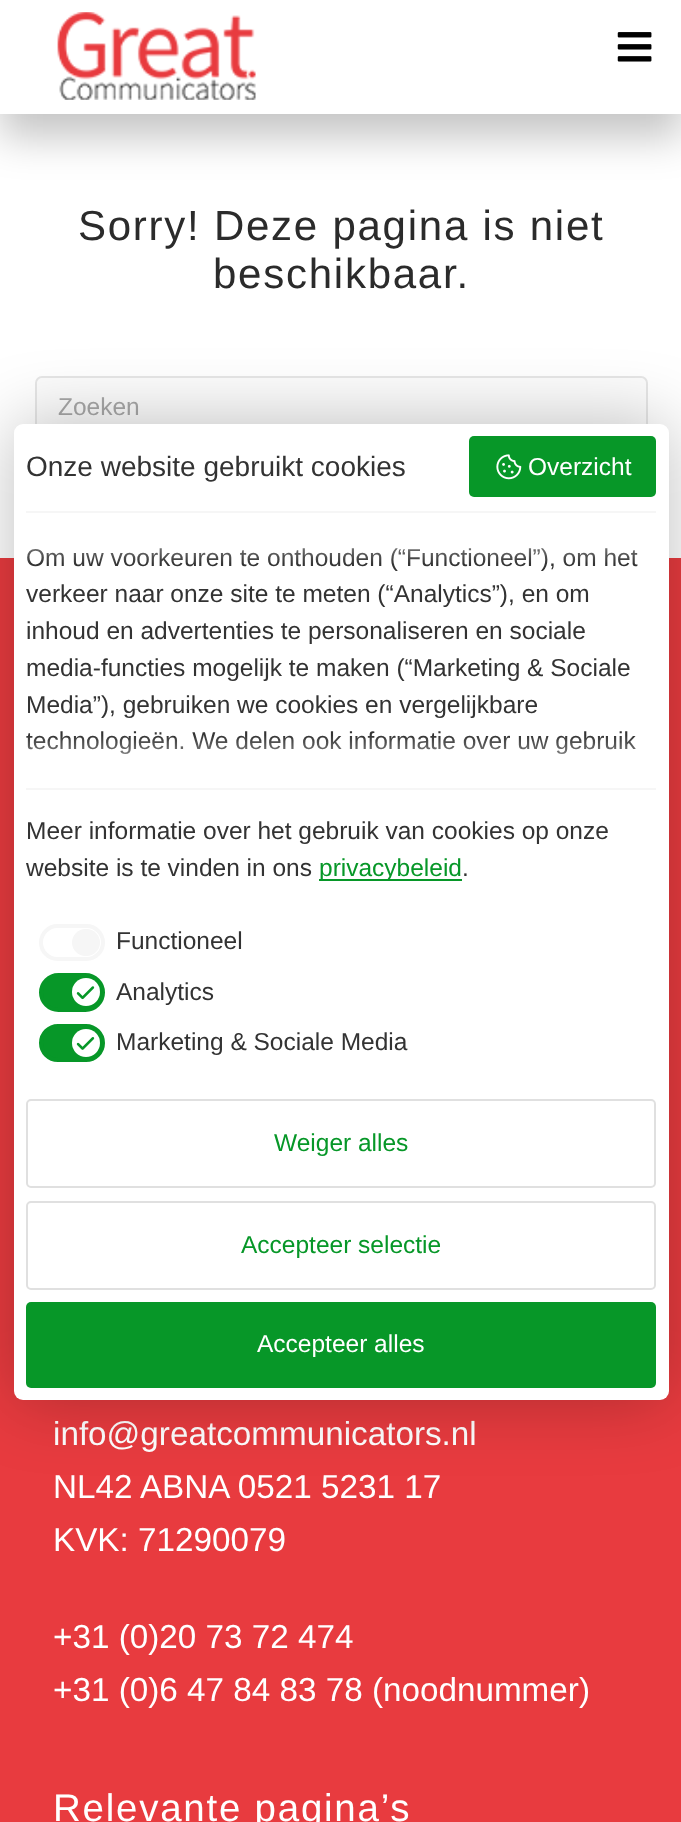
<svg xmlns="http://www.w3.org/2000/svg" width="681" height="1822">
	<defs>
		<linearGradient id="g1" gradientUnits="userSpaceOnUse" x1="341" y1="564" x2="341" y2="511"><stop offset="0" stop-color="#FFFFFF" stop-opacity="0" /><stop offset="1" stop-color="#FFFFFF" /></linearGradient>
		<linearGradient id="g2" gradientUnits="userSpaceOnUse" x1="341" y1="735" x2="341" y2="788"><stop offset="0" stop-color="#FFFFFF" stop-opacity="0" /><stop offset="1" stop-color="#FFFFFF" /></linearGradient>
	</defs>
	<rect width="100%" height="100%" fill="#FFFFFF" />
	<rect x="0" y="23" width="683" height="114" fill="#000000" fill-opacity="0.23" filter="blur(20px)" />
	<rect x="0" y="0" width="681" height="114" fill="#FFFFFF" />
	<image x="57" y="12" width="199" height="88" href="assets/img1.png" />
	<image x="617" y="32" width="35" height="30" href="assets/img2.png" />
	<g font-family="Liberation Sans" font-size="42" letter-spacing="1.75" fill="#2B2B2B">
		<text x="78" y="240">Sorry! Deze pagina is niet</text>
		<text x="213" y="288">beschikbaar.</text>
	</g>
	<rect x="36" y="377" width="611" height="58" rx="6" fill="#FCFCFC" stroke="#E6E6E6" stroke-width="2" />
	<text x="58" y="415" font-family="Liberation Sans" font-size="24.5" fill="#A8A8A8">Zoeken</text>
	<rect x="0" y="558" width="681" height="1264" fill="#E83B3F" />
	<g font-family="Liberation Sans" font-size="33.25" fill="#FFFFFF">
		<text x="53" y="1445">info@greatcommunicators.nl</text>
		<text x="53" y="1498">NL42 ABNA 0521 5231 17</text>
		<text x="53" y="1551">KVK: 71290079</text>
		<text x="53" y="1648">+31 (0)20 73 72 474</text>
		<text x="53" y="1701">+31 (0)6 47 84 83 78 (noodnummer)</text>
	</g>
	<text x="53" y="1821" font-family="Liberation Sans" font-size="38.5" letter-spacing="1.75" fill="#FFFFFF">Relevante pagina’s</text>
	<rect x="14" y="424" width="655" height="976" rx="9" fill="#000000" fill-opacity="0.25" filter="blur(35px)" />
	<rect x="14" y="424" width="655" height="976" rx="9" fill="#FFFFFF" />
	<text x="26" y="476" font-family="Liberation Sans" font-size="28" fill="#333333">Onze website gebruikt cookies</text>
	<rect x="469" y="436" width="187" height="61" rx="5" fill="#079728" />
	<image x="496" y="454" width="26" height="26" href="assets/img3.png" />
	<text x="528" y="475" font-family="Liberation Sans" font-size="24.5" fill="#FFFFFF">Overzicht</text>
	<rect x="26" y="511" width="630" height="2" fill="#F6F6F6" />
	<rect x="26" y="788" width="630" height="2" fill="#F6F6F6" />
	<g font-family="Liberation Sans" font-size="24.5" fill="#333333">
		<text x="26" y="566">Om uw voorkeuren te onthouden (“Functioneel”), om het</text>
		<text x="26" y="602">verkeer naar onze site te meten (“Analytics”), en om</text>
		<text x="26" y="639">inhoud en advertenties te personaliseren en sociale</text>
		<text x="26" y="676">media-functies mogelijk te maken (“Marketing &amp; Sociale</text>
		<text x="26" y="713">Media”), gebruiken we cookies en vergelijkbare</text>
		<text x="26" y="749">technologieën. We delen ook informatie over uw gebruik</text>
	</g>
	<rect x="27" y="548" width="611" height="15" fill="url(#g1)" />
	<rect x="27" y="736" width="609" height="19" fill="url(#g2)" />
	<g font-family="Liberation Sans" font-size="24.5" fill="#333333">
		<text x="26" y="839">Meer informatie over het gebruik van cookies op onze</text>
		<text x="26" y="876">website is te vinden in ons</text>
	</g>
	<rect x="319" y="879" width="143" height="2" fill="#079728" />
	<text x="319" y="876" font-family="Liberation Sans" font-size="24.5" fill="#079728">privacybeleid</text>
	<text x="462" y="876" font-family="Liberation Sans" font-size="24.5" fill="#333333">.</text>
	<rect x="41" y="926" width="62" height="33" rx="16.5" fill="none" stroke="#F6F6F6" stroke-width="4" />
	<rect x="72" y="929" width="28" height="27" rx="13.5" fill="#F6F6F6" />
	<text x="116" y="949" font-family="Liberation Sans" font-size="24.5" fill="#333333">Functioneel</text>
	<rect x="41" y="975" width="62" height="35" rx="17.5" fill="#079728" stroke="#079728" stroke-width="4" />
	<circle cx="86" cy="992" r="14" fill="#FFFFFF" />
	<image x="76" y="986" width="19" height="14" href="assets/img4.png" />
	<text x="116" y="1000" font-family="Liberation Sans" font-size="24.5" fill="#333333">Analytics</text>
	<rect x="41" y="1026" width="62" height="34" rx="17" fill="#079728" stroke="#079728" stroke-width="4" />
	<circle cx="86" cy="1043" r="14" fill="#FFFFFF" />
	<image x="76" y="1037" width="19" height="13" href="assets/img5.png" />
	<text x="116" y="1050" font-family="Liberation Sans" font-size="24.5" fill="#333333">Marketing &amp; Sociale Media</text>
	<rect x="27" y="1100" width="628" height="87" rx="4" fill="none" stroke="#E0E0E0" stroke-width="2" />
	<text x="274" y="1151" font-family="Liberation Sans" font-size="24.5" fill="#079728">Weiger alles</text>
	<rect x="27" y="1202" width="628" height="87" rx="4" fill="none" stroke="#E0E0E0" stroke-width="2" />
	<text x="241" y="1253" font-family="Liberation Sans" font-size="24.5" fill="#079728">Accepteer selectie</text>
	<rect x="26" y="1302" width="630" height="86" rx="5" fill="#079728" />
	<text x="257" y="1352" font-family="Liberation Sans" font-size="24.5" fill="#FFFFFF">Accepteer alles</text>
</svg>
